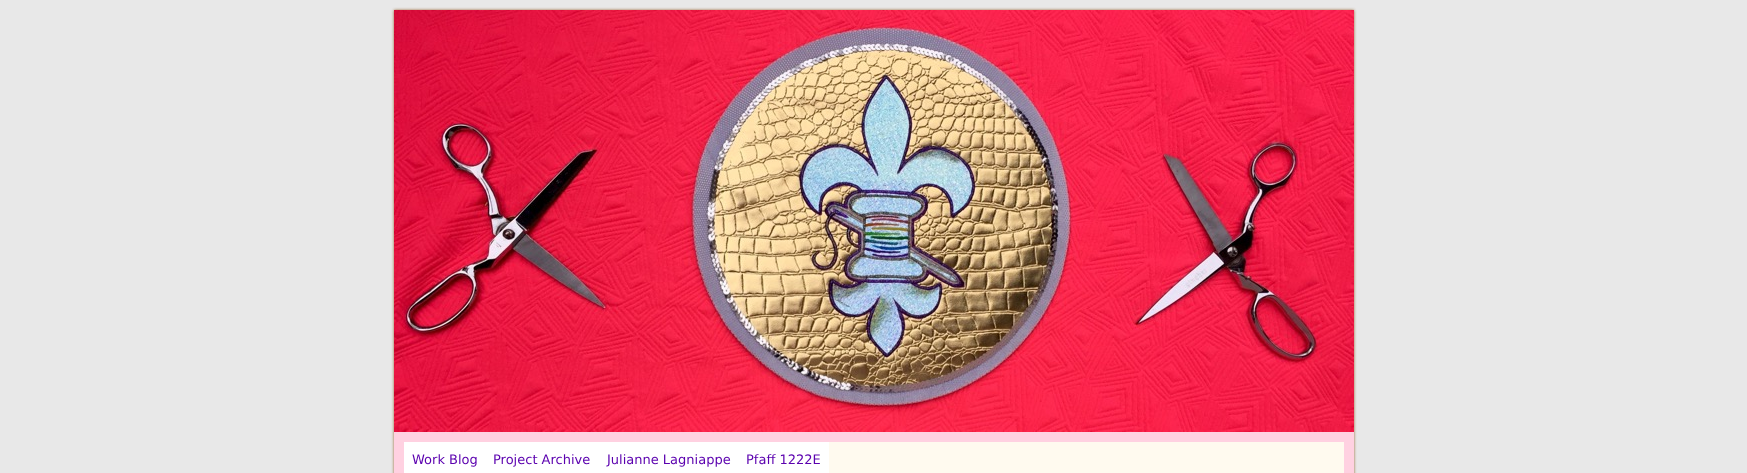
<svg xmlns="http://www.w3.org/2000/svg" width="1747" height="473">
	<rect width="100%" height="100%" fill="#E8E8E8" />
	<rect x="394" y="10" width="960" height="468" fill="#996633" filter="blur(1.5px)" />
	<rect x="394" y="432" width="960" height="41" fill="#FFD1E1" />
	<image x="394" y="10" width="960" height="422" href="assets/img1.png" />
	<rect x="829" y="442" width="515" height="31" fill="#FFFAEF" />
	<rect x="404" y="442" width="425" height="31" fill="#FFFFFF" />
	<g font-family="DejaVu Sans" font-size="13" fill="#5B01AF">
		<text x="412" y="464">Work Blog</text>
		<text x="493" y="464">Project Archive</text>
		<text x="607" y="464">Julianne Lagniappe</text>
		<text x="746" y="464">Pfaff 1222E</text>
	</g>
</svg>
